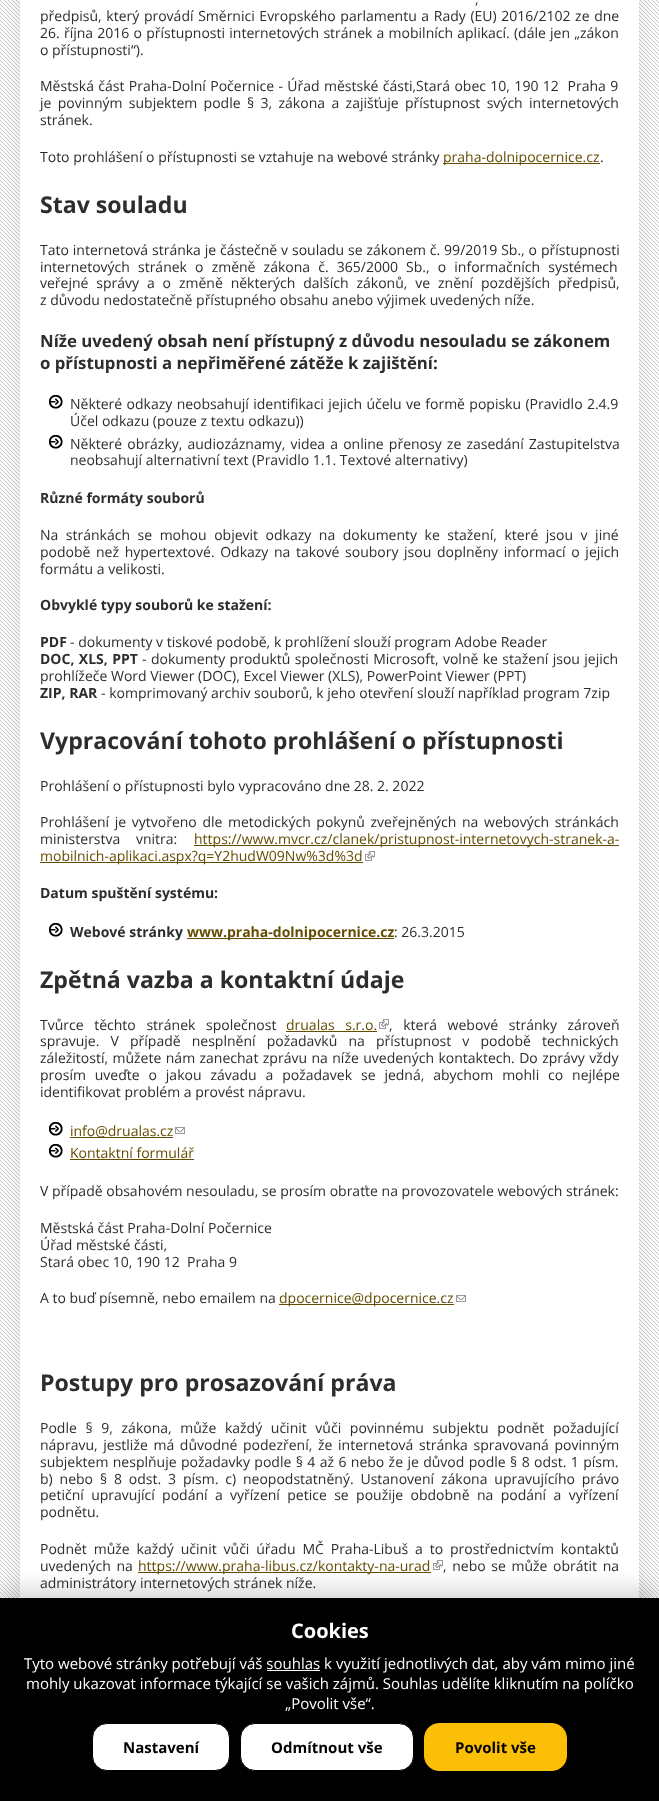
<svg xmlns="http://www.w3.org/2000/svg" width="659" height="1801">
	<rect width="100%" height="100%" fill="#FFFFFF" />
	<image x="0" y="0" width="659" height="1598" href="assets/img1.png" />
	<rect x="20" y="-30" width="619" height="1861" fill="#000000" fill-opacity="0.1" filter="blur(10px)" />
	<rect x="20" y="0" width="619" height="1598" fill="#FFFFFF" />
	<g font-family="Open Sans" font-size="14" fill="#2D2D2D">
		<text x="475" y="4" word-spacing="4">,</text>
		<text x="40" y="21" word-spacing="1">předpisů, který provádí Směrnici Evropského parlamentu a Rady (EU) 2016/2102 ze dne</text>
		<text x="40" y="38" word-spacing="0.6">26. října 2016 o přístupnosti internetových stránek a mobilních aplikací. (dále jen „zákon</text>
		<text x="40" y="55">o přístupnosti“).</text>
		<text x="40" y="91" word-spacing="0.75" xml:space="preserve">Městská část Praha-Dolní Počernice - Úřad městské části,Stará obec 10, 190 12  Praha 9</text>
		<text x="40" y="108" word-spacing="2.75">je povinným subjektem podle § 3, zákona a zajišťuje přístupnost svých internetových</text>
		<text x="40" y="125">stránek.</text>
		<text x="40" y="162">Toto prohlášení o přístupnosti se vztahuje na webové stránky</text>
	</g>
	<rect x="443" y="163" width="157" height="1" fill="#644C02" />
	<text x="443" y="162" font-family="Open Sans" font-size="14" fill="#644C02">praha-dolnipocernice.cz</text>
	<text x="600" y="162" font-family="Open Sans" font-size="14" fill="#2D2D2D">.</text>
	<text x="40" y="213" font-family="Open Sans" font-size="23.1" font-weight="700" fill="#2D2D2D">Stav souladu</text>
	<g font-family="Open Sans" font-size="14" fill="#2D2D2D">
		<text x="40" y="255" word-spacing="0.25">Tato internetová stránka je částečně v souladu se zákonem č. 99/2019 Sb., o přístupnosti</text>
		<text x="40" y="272" word-spacing="4.5">internetových stránek o změně zákona č. 365/2000 Sb., o informačních systémech</text>
		<text x="40" y="288" word-spacing="4.25">veřejné správy a o změně některých dalších zákonů, ve znění pozdějších předpisů,</text>
		<text x="40" y="305">z důvodu nedostatečně přístupného obsahu anebo výjimek uvedených níže.</text>
	</g>
	<g font-family="Open Sans" font-size="16.8" font-weight="700" fill="#2D2D2D">
		<text x="40" y="347">Níže uvedený obsah není přístupný z důvodu nesouladu se zákonem</text>
		<text x="40" y="369">o přístupnosti a nepřiměřené zátěže k zajištění:</text>
	</g>
	<image x="49" y="395" width="14" height="14" href="assets/img2.png" />
	<g font-family="Open Sans" font-size="14" fill="#2D2D2D">
		<text x="70" y="409" word-spacing="0.75">Některé odkazy neobsahují identifikaci jejich účelu ve formě popisku (Pravidlo 2.4.9</text>
		<text x="70" y="426">Účel odkazu (pouze z textu odkazu))</text>
	</g>
	<image x="49" y="435" width="14" height="14" href="assets/img2.png" />
	<g font-family="Open Sans" font-size="14" fill="#2D2D2D">
		<text x="70" y="449" word-spacing="1.5">Některé obrázky, audiozáznamy, videa a online přenosy ze zasedání Zastupitelstva</text>
		<text x="70" y="465">neobsahují alternativní text (Pravidlo 1.1. Textové alternativy)</text>
	</g>
	<text x="40" y="503" font-family="Open Sans" font-size="14" font-weight="700" fill="#2D2D2D">Různé formáty souborů</text>
	<g font-family="Open Sans" font-size="14" fill="#2D2D2D">
		<text x="40" y="540" word-spacing="3.9">Na stránkách se mohou objevit odkazy na dokumenty ke stažení, které jsou v jiné</text>
		<text x="40" y="557" word-spacing="2">podobě než hypertextové. Odkazy na takové soubory jsou doplněny informací o jejich</text>
		<text x="40" y="574">formátu a velikosti.</text>
	</g>
	<g font-family="Open Sans" font-size="14" font-weight="700" fill="#2D2D2D">
		<text x="40" y="610">Obvyklé typy souborů ke stažení:</text>
		<text x="40" y="647">PDF</text>
	</g>
	<text x="70" y="647" font-family="Open Sans" font-size="14" fill="#2D2D2D">- dokumenty v tiskové podobě, k prohlížení slouží program Adobe Reader</text>
	<text x="40" y="664" word-spacing="0.75" font-family="Open Sans" font-size="14" font-weight="700" fill="#2D2D2D">DOC, XLS, PPT</text>
	<g font-family="Open Sans" font-size="14" fill="#2D2D2D">
		<text x="142" y="664" word-spacing="0.75">- dokumenty produktů společnosti Microsoft, volně ke stažení jsou jejich</text>
		<text x="40" y="681">prohlížeče Word Viewer (DOC), Excel Viewer (XLS), PowerPoint Viewer (PPT)</text>
	</g>
	<text x="40" y="698" font-family="Open Sans" font-size="14" font-weight="700" fill="#2D2D2D">ZIP, RAR</text>
	<text x="101" y="698" font-family="Open Sans" font-size="14" fill="#2D2D2D">- komprimovaný archiv souborů, k jeho otevření slouží například program 7zip</text>
	<text x="40" y="749" font-family="Open Sans" font-size="23.1" font-weight="700" fill="#2D2D2D">Vypracování tohoto prohlášení o přístupnosti</text>
	<g font-family="Open Sans" font-size="14" fill="#2D2D2D">
		<text x="40" y="791">Prohlášení o přístupnosti bylo vypracováno dne 28. 2. 2022</text>
		<text x="40" y="827" word-spacing="2">Prohlášení je vytvořeno dle metodických pokynů zveřejněných na webových stránkách</text>
		<text x="40" y="844" word-spacing="12">ministerstva vnitra:</text>
	</g>
	<rect x="194" y="845" width="425" height="1" fill="#644C02" />
	<text x="194" y="844" font-family="Open Sans" font-size="14" fill="#644C02">https://www.mvcr.cz/clanek/pristupnost-internetovych-stranek-a-</text>
	<rect x="40" y="862" width="323" height="1" fill="#644C02" />
	<text x="40" y="861" font-family="Open Sans" font-size="14" fill="#644C02">mobilnich-aplikaci.aspx?q=Y2hudW09Nw%3d%3d</text>
	<image x="365" y="851" width="10" height="10" href="assets/img3.png" />
	<text x="40" y="898" font-family="Open Sans" font-size="14" font-weight="700" fill="#2D2D2D">Datum spuštění systému:</text>
	<image x="49" y="923" width="14" height="14" href="assets/img2.png" />
	<text x="70" y="937" font-family="Open Sans" font-size="14" font-weight="700" fill="#2D2D2D">Webové stránky</text>
	<rect x="187" y="938" width="207" height="1" fill="#644C02" />
	<text x="187" y="937" font-family="Open Sans" font-size="14" font-weight="700" fill="#644C02">www.praha-dolnipocernice.cz</text>
	<text x="394" y="937" font-family="Open Sans" font-size="14" fill="#2D2D2D">: 26.3.2015</text>
	<text x="40" y="988" font-family="Open Sans" font-size="23.1" font-weight="700" fill="#2D2D2D">Zpětná vazba a kontaktní údaje</text>
	<text x="40" y="1030" word-spacing="7" font-family="Open Sans" font-size="14" fill="#2D2D2D">Tvůrce těchto stránek společnost</text>
	<text x="286" y="1030" word-spacing="7" font-family="Open Sans" font-size="14" fill="#644C02">drualas s.r.o.</text>
	<rect x="286" y="1031" width="91" height="1" fill="#644C02" />
	<image x="379" y="1019" width="10" height="10" href="assets/img3.png" />
	<g font-family="Open Sans" font-size="14" fill="#2D2D2D">
		<text x="389" y="1030" word-spacing="7">, která webové stránky zároveň</text>
		<text x="40" y="1046" word-spacing="7.5">spravuje. V případě nesplnění požadavků na přístupnost v podobě technických</text>
		<text x="40" y="1063" word-spacing="0.8">záležitostí, můžete nám zanechat zprávu na níže uvedených kontaktech. Do zprávy vždy</text>
		<text x="40" y="1080" word-spacing="5.25">prosím uveďte o jakou závadu a požadavek se jedná, abychom mohli co nejlépe</text>
		<text x="40" y="1097">identifikovat problém a provést nápravu.</text>
	</g>
	<image x="49" y="1122" width="14" height="14" href="assets/img2.png" />
	<rect x="70" y="1137" width="103" height="1" fill="#644C02" />
	<text x="70" y="1136" font-family="Open Sans" font-size="14" fill="#644C02">info@drualas.cz</text>
	<image x="175" y="1127" width="10" height="7" href="assets/img4.png" />
	<image x="49" y="1144" width="14" height="14" href="assets/img2.png" />
	<text x="70" y="1158" font-family="Open Sans" font-size="14" fill="#644C02">Kontaktní formulář</text>
	<rect x="70" y="1159" width="124" height="1" fill="#644C02" />
	<g font-family="Open Sans" font-size="14" fill="#2D2D2D">
		<text x="40" y="1196">V případě obsahovém nesouladu, se prosím obraťte na provozovatele webových stránek:</text>
		<text x="40" y="1233">Městská část Praha-Dolní Počernice</text>
		<text x="40" y="1250">Úřad městské části,</text>
		<text x="40" y="1267" xml:space="preserve">Stará obec 10, 190 12  Praha 9</text>
		<text x="40" y="1303">A to buď písemně, nebo emailem na</text>
	</g>
	<rect x="279" y="1304" width="175" height="1" fill="#644C02" />
	<text x="279" y="1303" font-family="Open Sans" font-size="14" fill="#644C02">dpocernice@dpocernice.cz</text>
	<image x="456" y="1295" width="10" height="7" href="assets/img4.png" />
	<text x="40" y="1391" font-family="Open Sans" font-size="23.1" font-weight="700" fill="#2D2D2D">Postupy pro prosazování práva</text>
	<g font-family="Open Sans" font-size="14" fill="#2D2D2D">
		<text x="40" y="1433" word-spacing="5">Podle § 9, zákona, může každý učinit vůči povinnému subjektu podnět požadující</text>
		<text x="40" y="1450" word-spacing="2">nápravu, jestliže má důvodné podezření, že internetová stránka spravovaná povinným</text>
		<text x="40" y="1467" word-spacing="0.75">subjektem nesplňuje požadavky podle § 4 až 6 nebo že je důvod podle § 8 odst. 1 písm.</text>
		<text x="40" y="1484" word-spacing="3.25">b) nebo § 8 odst. 3 písm. c) neopodstatněný. Ustanovení zákona upravujícího právo</text>
		<text x="40" y="1500" word-spacing="3.75">petiční upravující podání a vyřízení petice se použije obdobně na podání a vyřízení</text>
		<text x="40" y="1517">podnětu.</text>
		<text x="40" y="1554" word-spacing="3.25">Podnět může každý učinit vůči úřadu MČ Praha-Libuš a to prostřednictvím kontaktů</text>
		<text x="40" y="1571" word-spacing="2">uvedených na</text>
	</g>
	<rect x="138" y="1572" width="293" height="1" fill="#644C02" />
	<text x="138" y="1571" font-family="Open Sans" font-size="14" fill="#644C02">https://www.praha-libus.cz/kontakty-na-urad</text>
	<image x="433" y="1560" width="10" height="10" href="assets/img3.png" />
	<g font-family="Open Sans" font-size="14" fill="#2D2D2D">
		<text x="443" y="1571" word-spacing="2">, nebo se může obrátit na</text>
		<text x="40" y="1588">administrátory internetových stránek níže.</text>
	</g>
	<rect x="0" y="1588" width="659" height="203" fill="#000000" fill-opacity="0.15" filter="blur(10px)" />
	<rect x="0" y="1598" width="659" height="203" fill="#000000" />
	<text x="291" y="1638" font-family="Open Sans" font-size="20" font-weight="700" fill="#FFFFFF">Cookies</text>
	<text x="24" y="1669" font-family="Open Sans" font-size="15" fill="#FFFFFF">Tyto webové stránky potřebují váš souhlas k využití jednotlivých dat, aby vám mimo jiné</text>
	<rect x="267" y="1670" width="53" height="1" fill="#FFFFFF" />
	<g font-family="Open Sans" font-size="15" fill="#FFFFFF">
		<text x="26" y="1689">mohly ukazovat informace týkající se vašich zájmů. Souhlas udělíte kliknutím na políčko</text>
		<text x="285" y="1709">„Povolit vše“.</text>
	</g>
	<rect x="92.5" y="1723.5" width="137" height="47" rx="14.5" fill="#FFFFFF" stroke="#000000" />
	<text x="123" y="1753" font-family="Open Sans" font-size="15" font-weight="700" fill="#000000">Nastavení</text>
	<rect x="240.5" y="1723.5" width="173" height="47" rx="14.5" fill="#FFFFFF" stroke="#000000" />
	<text x="271" y="1753" font-family="Open Sans" font-size="15" font-weight="700" fill="#000000">Odmítnout vše</text>
	<rect x="424.5" y="1723.5" width="142" height="47" rx="14.5" fill="#FABF06" stroke="#FABF06" />
	<text x="455" y="1753" font-family="Open Sans" font-size="15" font-weight="700" fill="#000000">Povolit vše</text>
</svg>
